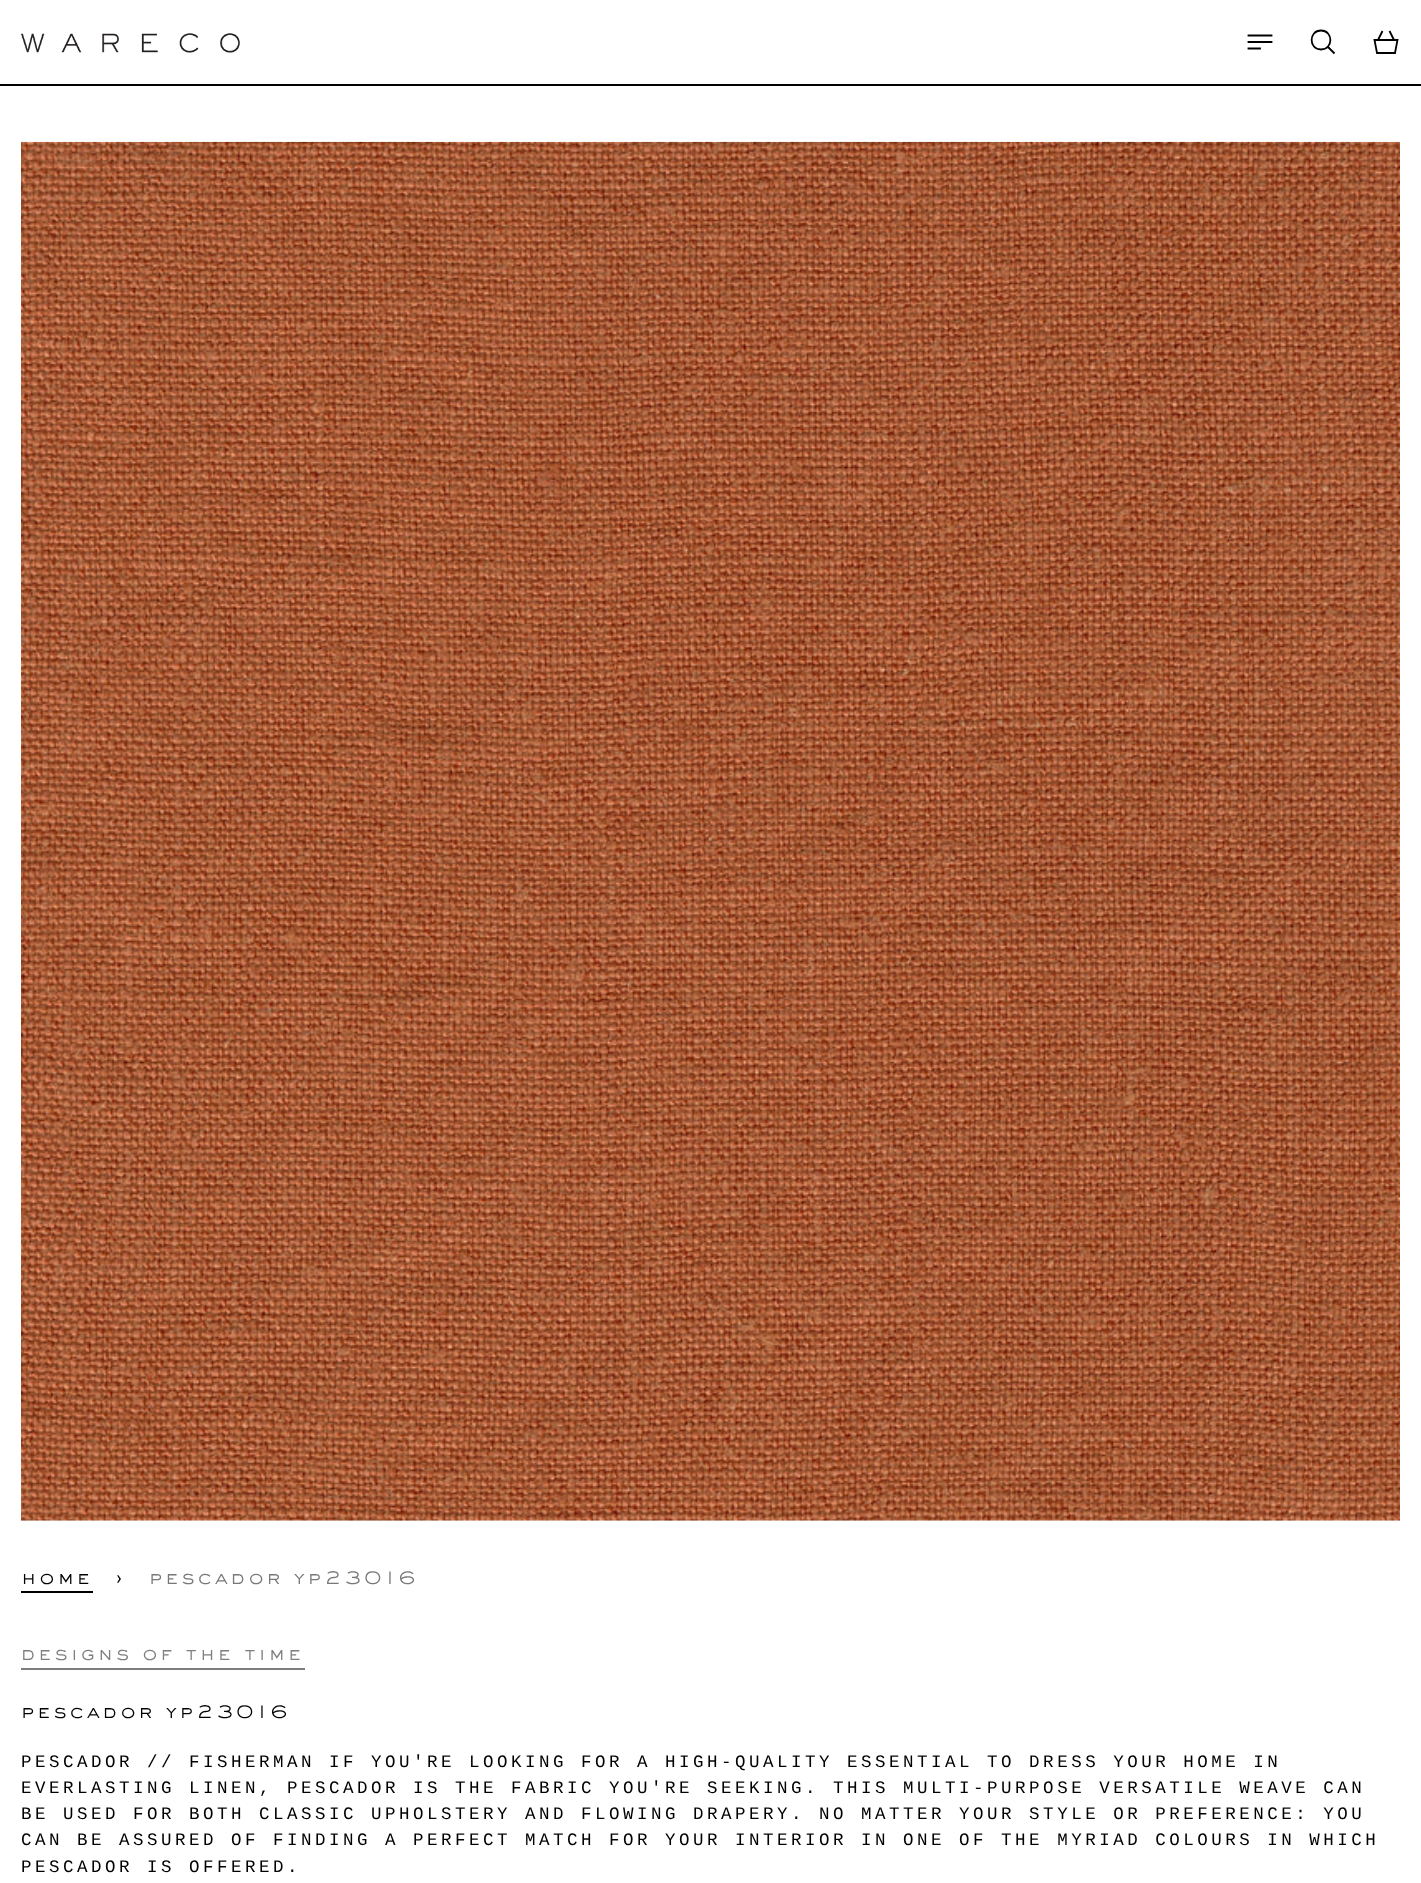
<svg xmlns="http://www.w3.org/2000/svg" width="1421" height="1883">
	<rect width="100%" height="100%" fill="#FFFFFF" />
	<rect x="0" y="84" width="1421" height="2" fill="#000000" />
	<image x="21" y="33" width="219" height="20" href="assets/img1.png" />
	<path d="M1248.5 35.5H1271.5M1248.5 48.5H1260M1248.5 42H1271.5" fill="none" stroke="#000000" stroke-width="1.8" stroke-linecap="square" />
	<path d="M1321 49.5C1333.5 49.5 1333.5 30.5 1321 30.5C1308.5 30.5 1308.5 49.5 1321 49.5ZM1327.5 46.5L1334.5 53.5" fill="none" stroke="#000000" stroke-width="1.8" />
	<path d="M1377 53L1374.5 40H1397.5L1395 53ZM1378 40L1382.5 31M1394 40L1389.5 31" fill="none" stroke="#000000" stroke-width="1.8" />
	<image x="21" y="141" width="1379" height="1380" href="assets/img2.png" />
	<text x="21" y="1584" font-family="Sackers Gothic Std" font-size="19.25" font-weight="300" letter-spacing="2.9" fill="#000000">home</text>
	<rect x="21" y="1591" width="72" height="2" fill="#000000" />
	<text x="116" y="1584" font-family="Sackers Gothic Std" font-size="19.25" font-weight="300" letter-spacing="2.9" fill="#000000">›</text>
	<text x="149" y="1584" font-family="Sackers Gothic Std" font-size="19.25" font-weight="300" letter-spacing="2.9" fill="#787878">pescador yp23016</text>
	<text x="21" y="1660" font-family="Sackers Gothic Std" font-size="19.25" font-weight="300" letter-spacing="2.9" fill="#7E7E7E">designs of the time</text>
	<rect x="21" y="1668" width="284" height="2" fill="#7E7E7E" />
	<text x="21" y="1718" font-family="Sackers Gothic Std" font-size="19.25" font-weight="300" letter-spacing="2.9" fill="#000000">pescador yp23016</text>
	<g font-family="Liberation Mono" font-size="17.5" letter-spacing="3.5" fill="#000000">
		<text x="21" y="1767">PESCADOR // FISHERMAN IF YOU'RE LOOKING FOR A HIGH-QUALITY ESSENTIAL TO DRESS YOUR HOME IN</text>
		<text x="21" y="1793">EVERLASTING LINEN, PESCADOR IS THE FABRIC YOU'RE SEEKING. THIS MULTI-PURPOSE VERSATILE WEAVE CAN</text>
		<text x="21" y="1819">BE USED FOR BOTH CLASSIC UPHOLSTERY AND FLOWING DRAPERY. NO MATTER YOUR STYLE OR PREFERENCE: YOU</text>
		<text x="21" y="1845">CAN BE ASSURED OF FINDING A PERFECT MATCH FOR YOUR INTERIOR IN ONE OF THE MYRIAD COLOURS IN WHICH</text>
		<text x="21" y="1872">PESCADOR IS OFFERED.</text>
	</g>
</svg>
